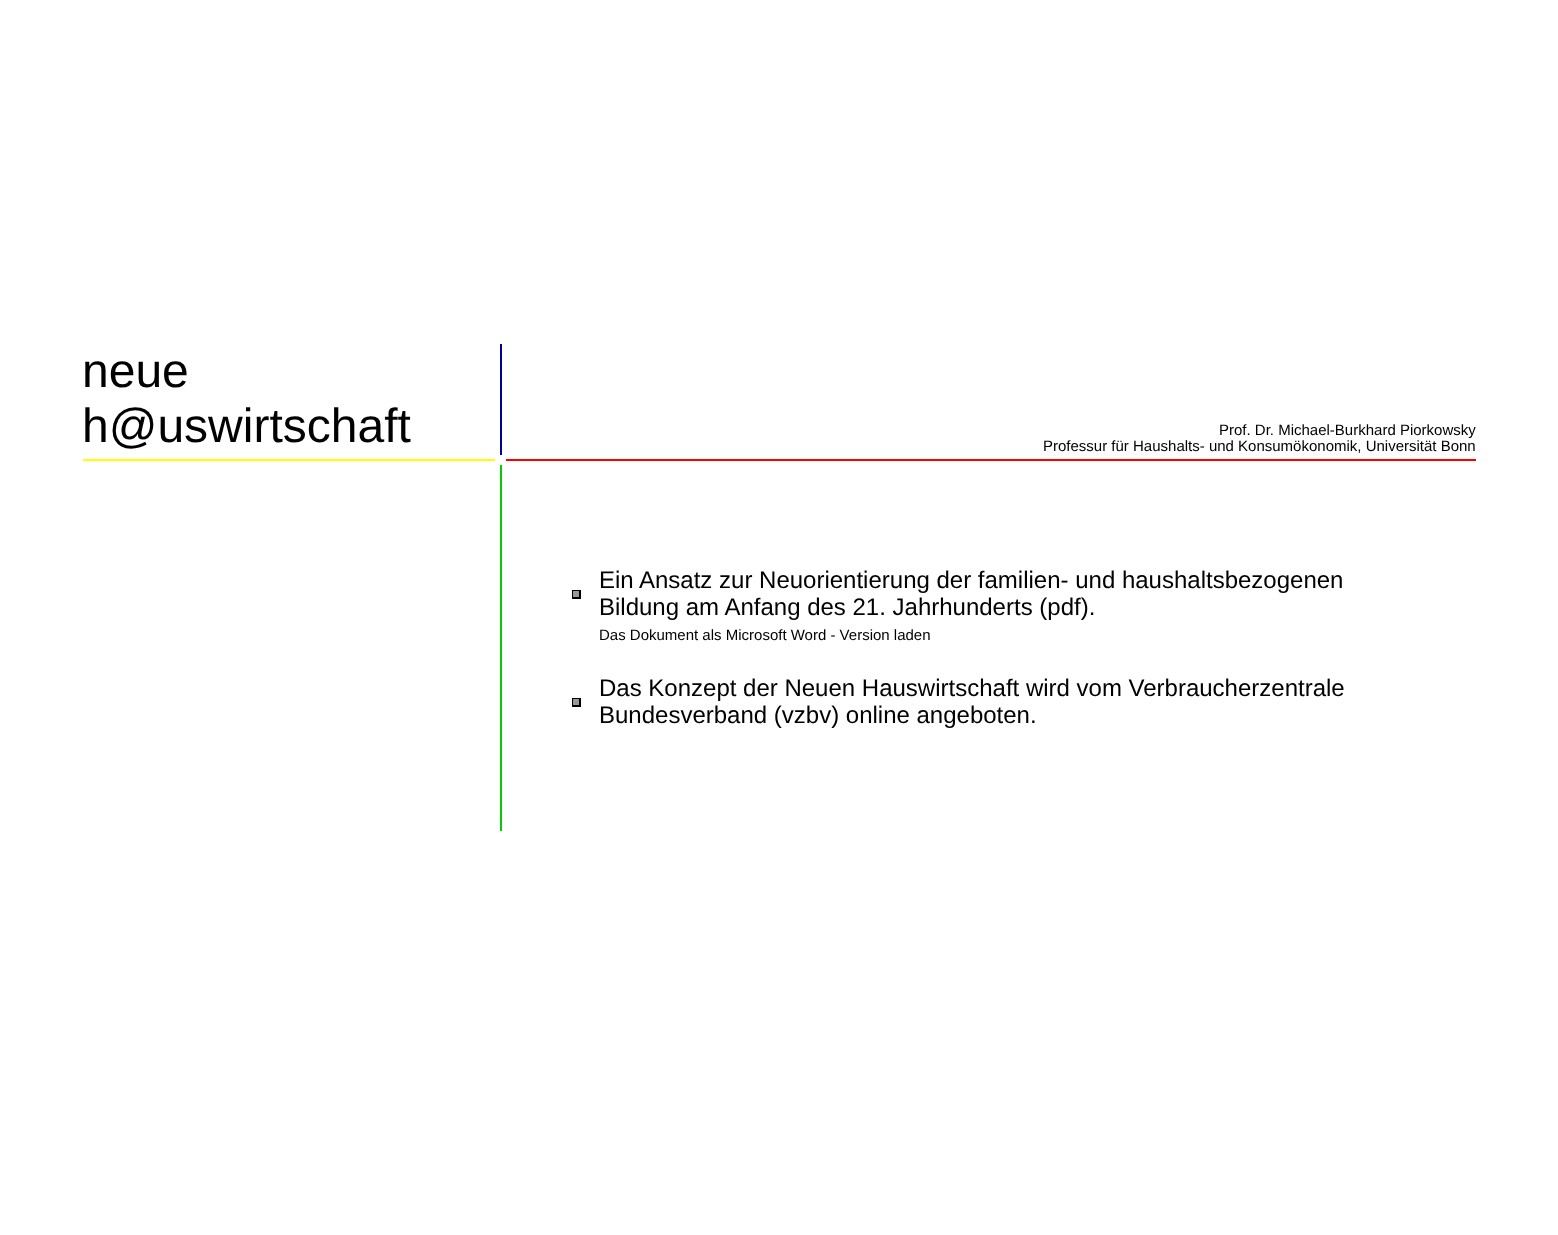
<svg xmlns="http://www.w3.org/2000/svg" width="1558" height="1235">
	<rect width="100%" height="100%" fill="#FFFFFF" />
	<g font-family="Liberation Sans" font-size="48" fill="#000000">
		<text x="82" y="387">neue</text>
		<text x="82" y="442">h@uswirtschaft</text>
	</g>
	<rect x="500" y="344" width="2" height="111" fill="#000099" />
	<g font-family="Liberation Sans" font-size="15" fill="#000000">
		<text x="1219" y="435">Prof. Dr. Michael-Burkhard Piorkowsky</text>
		<text x="1043" y="451">Professur für Haushalts- und Konsumökonomik, Universität Bonn</text>
	</g>
	<rect x="83" y="459" width="412" height="2" fill="#FFFF00" />
	<rect x="506" y="459" width="970" height="2" fill="#FF0000" />
	<rect x="500" y="465" width="2" height="366" fill="#00CC00" />
	<rect x="572" y="590" width="9" height="9" fill="#000000" />
	<rect x="573" y="591" width="6" height="6" fill="#999999" />
	<g font-family="Liberation Sans" font-size="24" fill="#000000">
		<text x="599" y="588">Ein</text>
		<text x="639" y="588">Ansatz zur Neuorientierung der familien- und haushaltsbezogenen</text>
		<text x="599" y="615">Bildung am Anfang des 21. Jahrhunderts (pdf).</text>
	</g>
	<text x="599" y="640" font-family="Liberation Sans" font-size="15" fill="#000000">Das Dokument als Microsoft Word - Version laden</text>
	<rect x="572" y="698" width="9" height="9" fill="#000000" />
	<rect x="573" y="699" width="6" height="6" fill="#999999" />
	<g font-family="Liberation Sans" font-size="24" fill="#000000">
		<text x="599" y="696">Das Konzept der Neuen Hauswirtschaft wird vom Verbraucherzentrale</text>
		<text x="599" y="723">Bundesverband (vzbv) online angeboten.</text>
	</g>
</svg>
